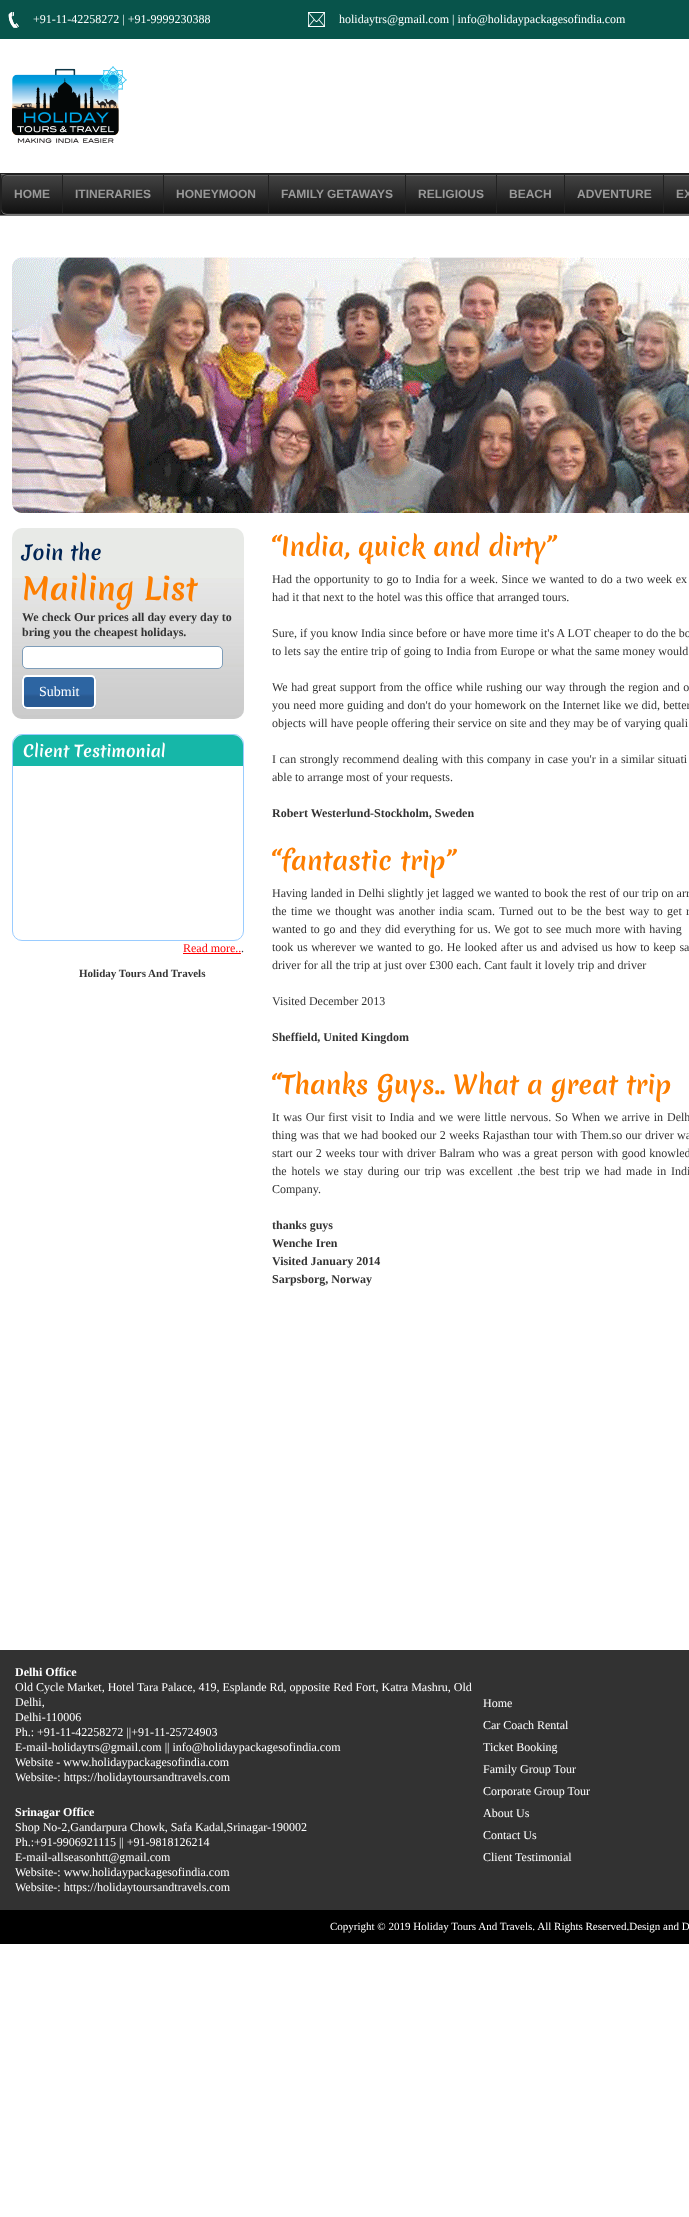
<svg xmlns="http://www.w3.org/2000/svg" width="689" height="2217">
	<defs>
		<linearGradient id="g1" gradientUnits="userSpaceOnUse" x1="572" y1="174" x2="572" y2="214"><stop offset="0" stop-color="#444444" /><stop offset="1" stop-color="#111111" /></linearGradient>
		<clipPath id="clip1"><rect x="1" y="174" width="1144" height="40" rx="6" /></clipPath>
		<linearGradient id="g2" gradientUnits="userSpaceOnUse" x1="573" y1="175" x2="573" y2="213"><stop offset="0" stop-color="#444444" /><stop offset="1" stop-color="#111111" /></linearGradient>
	</defs>
	<rect width="100%" height="100%" fill="#FFFFFF" />
	<rect x="0" y="0" width="689" height="39" fill="#08544B" />
	<image x="8" y="12" width="11" height="16" href="assets/img1.png" />
	<text x="33" y="23" font-family="Liberation Serif" font-size="12" fill="#FFFFFF">+91-11-42258272 | +91-9999230388</text>
	<image x="308" y="12" width="17" height="15" href="assets/img2.png" />
	<text x="339" y="23" font-family="Liberation Serif" font-size="12" fill="#FFFFFF">holidaytrs@gmail.com | info@holidaypackagesofindia.com</text>
	<image x="12" y="66" width="115" height="77" href="assets/img3.png" />
	<rect x="0" y="174" width="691" height="42" fill="#777777" filter="blur(0.5px)" />
	<rect x="1" y="175" width="6" height="39" fill="url(#g1)" />
	<rect x="1" y="174" width="6" height="1" fill="#666666" />
	<rect x="0.5" y="173.5" width="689" height="41" fill="none" stroke="#222222" />
	<rect x="1" y="175" width="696" height="40" rx="6" fill="#777777" filter="blur(0.5px)" />
	<g clip-path="url(#clip1)">
		<rect x="1" y="175" width="688" height="38" fill="url(#g2)" />
	</g>
	<path d="M7 176H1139C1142 176 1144 178 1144 181C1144 178 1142 175 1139 175H7C4 175 2 178 2 181C2 178 4 176 7 176Z" fill="#666666" />
	<rect x="1.5" y="174.5" width="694" height="39" rx="5.5" fill="none" stroke="#222222" />
	<rect x="62" y="175" width="1" height="38" fill="#222222" />
	<text x="14" y="198" font-family="Liberation Sans" font-size="12" font-weight="700" fill="#999999">HOME</text>
	<rect x="163" y="175" width="1" height="38" fill="#222222" />
	<text x="75" y="198" font-family="Liberation Sans" font-size="12" font-weight="700" fill="#999999">ITINERARIES</text>
	<rect x="268" y="175" width="1" height="38" fill="#222222" />
	<text x="176" y="198" font-family="Liberation Sans" font-size="12" font-weight="700" fill="#999999">HONEYMOON</text>
	<rect x="405" y="175" width="1" height="38" fill="#222222" />
	<text x="281" y="198" font-family="Liberation Sans" font-size="12" font-weight="700" fill="#999999">FAMILY GETAWAYS</text>
	<rect x="496" y="175" width="1" height="38" fill="#222222" />
	<text x="418" y="198" font-family="Liberation Sans" font-size="12" font-weight="700" fill="#999999">RELIGIOUS</text>
	<rect x="564" y="175" width="1" height="38" fill="#222222" />
	<text x="509" y="198" font-family="Liberation Sans" font-size="12" font-weight="700" fill="#999999">BEACH</text>
	<rect x="663" y="175" width="1" height="38" fill="#222222" />
	<g font-family="Liberation Sans" font-size="12" font-weight="700" fill="#999999">
		<text x="577" y="198">ADVENTURE</text>
		<text x="676" y="198">EX</text>
	</g>
	<image x="12" y="257" width="677" height="256" href="assets/img4.png" />
	<rect x="12" y="528" width="232" height="191" rx="10" fill="#E8EAE7" />
	<image x="12" y="578" width="232" height="141" href="assets/img5.png" />
	<text x="22" y="560" font-family="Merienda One" font-size="20" fill="#002454">Join the</text>
	<text x="22" y="600" font-family="Merienda One" font-size="30" fill="#FD7E00">Mailing List</text>
	<g font-family="Liberation Serif" font-size="12" font-weight="700" fill="#333333">
		<text x="22" y="621">We check Our prices all day every day to</text>
		<text x="22" y="636">bring you the cheapest holidays.</text>
	</g>
	<rect x="22.5" y="646.5" width="200" height="22" rx="4.5" fill="#FFFFFF" stroke="#7E9DB9" />
	<image x="22" y="677" width="74" height="32" href="assets/img6.png" />
	<rect x="23" y="676" width="72" height="32" rx="4" fill="none" stroke="#FFFFFF" stroke-width="2" />
	<text x="39" y="696" font-family="Liberation Serif" font-size="14" fill="#FFFFFF">Submit</text>
	<rect x="12.5" y="734.5" width="231" height="206" rx="9.5" fill="none" stroke="#9ACCFF" />
	<path d="M23 735H233C238.5 735 243 739.5 243 745V766H13V745C13 739.5 17.5 735 23 735Z" fill="#16B7A8" />
	<text x="23" y="757" font-family="Merienda One" font-size="16" fill="#FFFFFF">Client Testimonial</text>
	<text x="183" y="952" font-family="Liberation Serif" font-size="12" fill="#FF0000">Read more..</text>
	<rect x="183" y="953" width="58" height="1" fill="#FF0000" />
	<text x="241" y="952" font-family="Liberation Serif" font-size="12" fill="#333333">.</text>
	<text x="79" y="977" font-family="Liberation Serif" font-size="11" font-weight="700" fill="#333333">Holiday Tours And Travels</text>
	<text x="272" y="556" font-family="Merienda One" font-size="25" fill="#FD7E00">“India, quick and dirty”</text>
	<g font-family="Liberation Serif" font-size="12" fill="#333333">
		<text x="272" y="583" word-spacing="0.6">Had the opportunity to go to India for a week. Since we wanted to do a two week ex</text>
		<text x="272" y="601">had it that next to the hotel was this office that arranged tours.</text>
		<text x="272" y="637">Sure, if you know India since before or have more time it's A LOT cheaper to do the bo</text>
		<text x="272" y="655">to lets say the entire trip of going to India from Europe or what the same money would</text>
		<text x="272" y="691" word-spacing="0.6">We had great support from the office while rushing our way through the region and o</text>
		<text x="272" y="709" word-spacing="0.25">you need more guiding and don't do your homework on the Internet like we did, better</text>
		<text x="272" y="727">objects will have people offering their service on site and they may be of varying quali</text>
		<text x="272" y="763" word-spacing="0.5">I can strongly recommend dealing with this company in case you'r in a similar situati</text>
		<text x="272" y="781">able to arrange most of your requests.</text>
	</g>
	<text x="272" y="817" font-family="Liberation Serif" font-size="12" font-weight="700" fill="#333333">Robert Westerlund-Stockholm, Sweden</text>
	<text x="272" y="870" font-family="Merienda One" font-size="25" fill="#FD7E00">“fantastic trip”</text>
	<g font-family="Liberation Serif" font-size="12" fill="#333333">
		<text x="272" y="897" word-spacing="0.1">Having landed in Delhi slightly jet lagged we wanted to book the rest of our trip on arr</text>
		<text x="272" y="915" word-spacing="1.3">the time we thought was another india scam. Turned out to be the best way to get r</text>
		<text x="272" y="933" word-spacing="0.8">wanted to go and they did everything for us. We got to see much more with having</text>
		<text x="272" y="951" word-spacing="0.6">took us wherever we wanted to go. He looked after us and advised us how to keep sa</text>
		<text x="272" y="969">driver for all the trip at just over £300 each. Cant fault it lovely trip and driver</text>
		<text x="272" y="1005">Visited December 2013</text>
	</g>
	<text x="272" y="1041" font-family="Liberation Serif" font-size="12" font-weight="700" fill="#333333">Sheffield, United Kingdom</text>
	<text x="272" y="1094" font-family="Merienda One" font-size="25" fill="#FD7E00">“Thanks Guys.. What a great trip</text>
	<g font-family="Liberation Serif" font-size="12" fill="#333333">
		<text x="272" y="1121" word-spacing="0.9">It was Our first visit to India and we were little nervous. So When we arrive in Delh</text>
		<text x="272" y="1139" word-spacing="0.4">thing was that we had booked our 2 weeks Rajasthan tour with Them.so our driver wa</text>
		<text x="272" y="1157" word-spacing="0.6">start our 2 weeks tour with driver Balram who was a great person with good knowled</text>
		<text x="272" y="1175" word-spacing="1.75">the hotels we stay during our trip was excellent .the best trip we had made in Indi</text>
		<text x="272" y="1193">Company.</text>
	</g>
	<g font-family="Liberation Serif" font-size="12" font-weight="700" fill="#333333">
		<text x="272" y="1229">thanks guys</text>
		<text x="272" y="1247">Wenche Iren</text>
		<text x="272" y="1265">Visited January 2014</text>
		<text x="272" y="1283">Sarpsborg, Norway</text>
	</g>
	<rect x="0" y="1650" width="689" height="260" fill="#323232" />
	<text x="15" y="1676" font-family="Liberation Serif" font-size="12" font-weight="700" fill="#FFFFFF">Delhi Office</text>
	<g font-family="Liberation Serif" font-size="12" fill="#FFFFFF">
		<text x="15" y="1691">Old Cycle Market, Hotel Tara Palace, 419, Esplande Rd, opposite Red Fort, Katra Mashru, Old</text>
		<text x="15" y="1706">Delhi,</text>
		<text x="15" y="1721">Delhi-110006</text>
		<text x="15" y="1736">Ph.: +91-11-42258272 ||+91-11-25724903</text>
		<text x="15" y="1751">E-mail-holidaytrs@gmail.com || info@holidaypackagesofindia.com</text>
		<text x="15" y="1766">Website - www.holidaypackagesofindia.com</text>
		<text x="15" y="1781">Website-: https://holidaytoursandtravels.com</text>
	</g>
	<text x="15" y="1816" font-family="Liberation Serif" font-size="12" font-weight="700" fill="#FFFFFF">Srinagar Office</text>
	<g font-family="Liberation Serif" font-size="12" fill="#FFFFFF">
		<text x="15" y="1831">Shop No-2,Gandarpura Chowk, Safa Kadal,Srinagar-190002</text>
		<text x="15" y="1846">Ph.:+91-9906921115 || +91-9818126214</text>
		<text x="15" y="1861">E-mail-allseasonhtt@gmail.com</text>
		<text x="15" y="1876">Website-: www.holidaypackagesofindia.com</text>
		<text x="15" y="1891">Website-: https://holidaytoursandtravels.com</text>
		<text x="483" y="1707">Home</text>
		<text x="483" y="1729">Car Coach Rental</text>
		<text x="483" y="1751">Ticket Booking</text>
		<text x="483" y="1773">Family Group Tour</text>
		<text x="483" y="1795">Corporate Group Tour</text>
		<text x="483" y="1817">About Us</text>
		<text x="483" y="1839">Contact Us</text>
		<text x="483" y="1861">Client Testimonial</text>
	</g>
	<rect x="0" y="1910" width="689" height="34" fill="#000000" />
	<text x="330" y="1930" font-family="Liberation Serif" font-size="11" fill="#FFFFFF">Copyright © 2019 Holiday Tours And Travels. All Rights Reserved.Design and D</text>
</svg>
